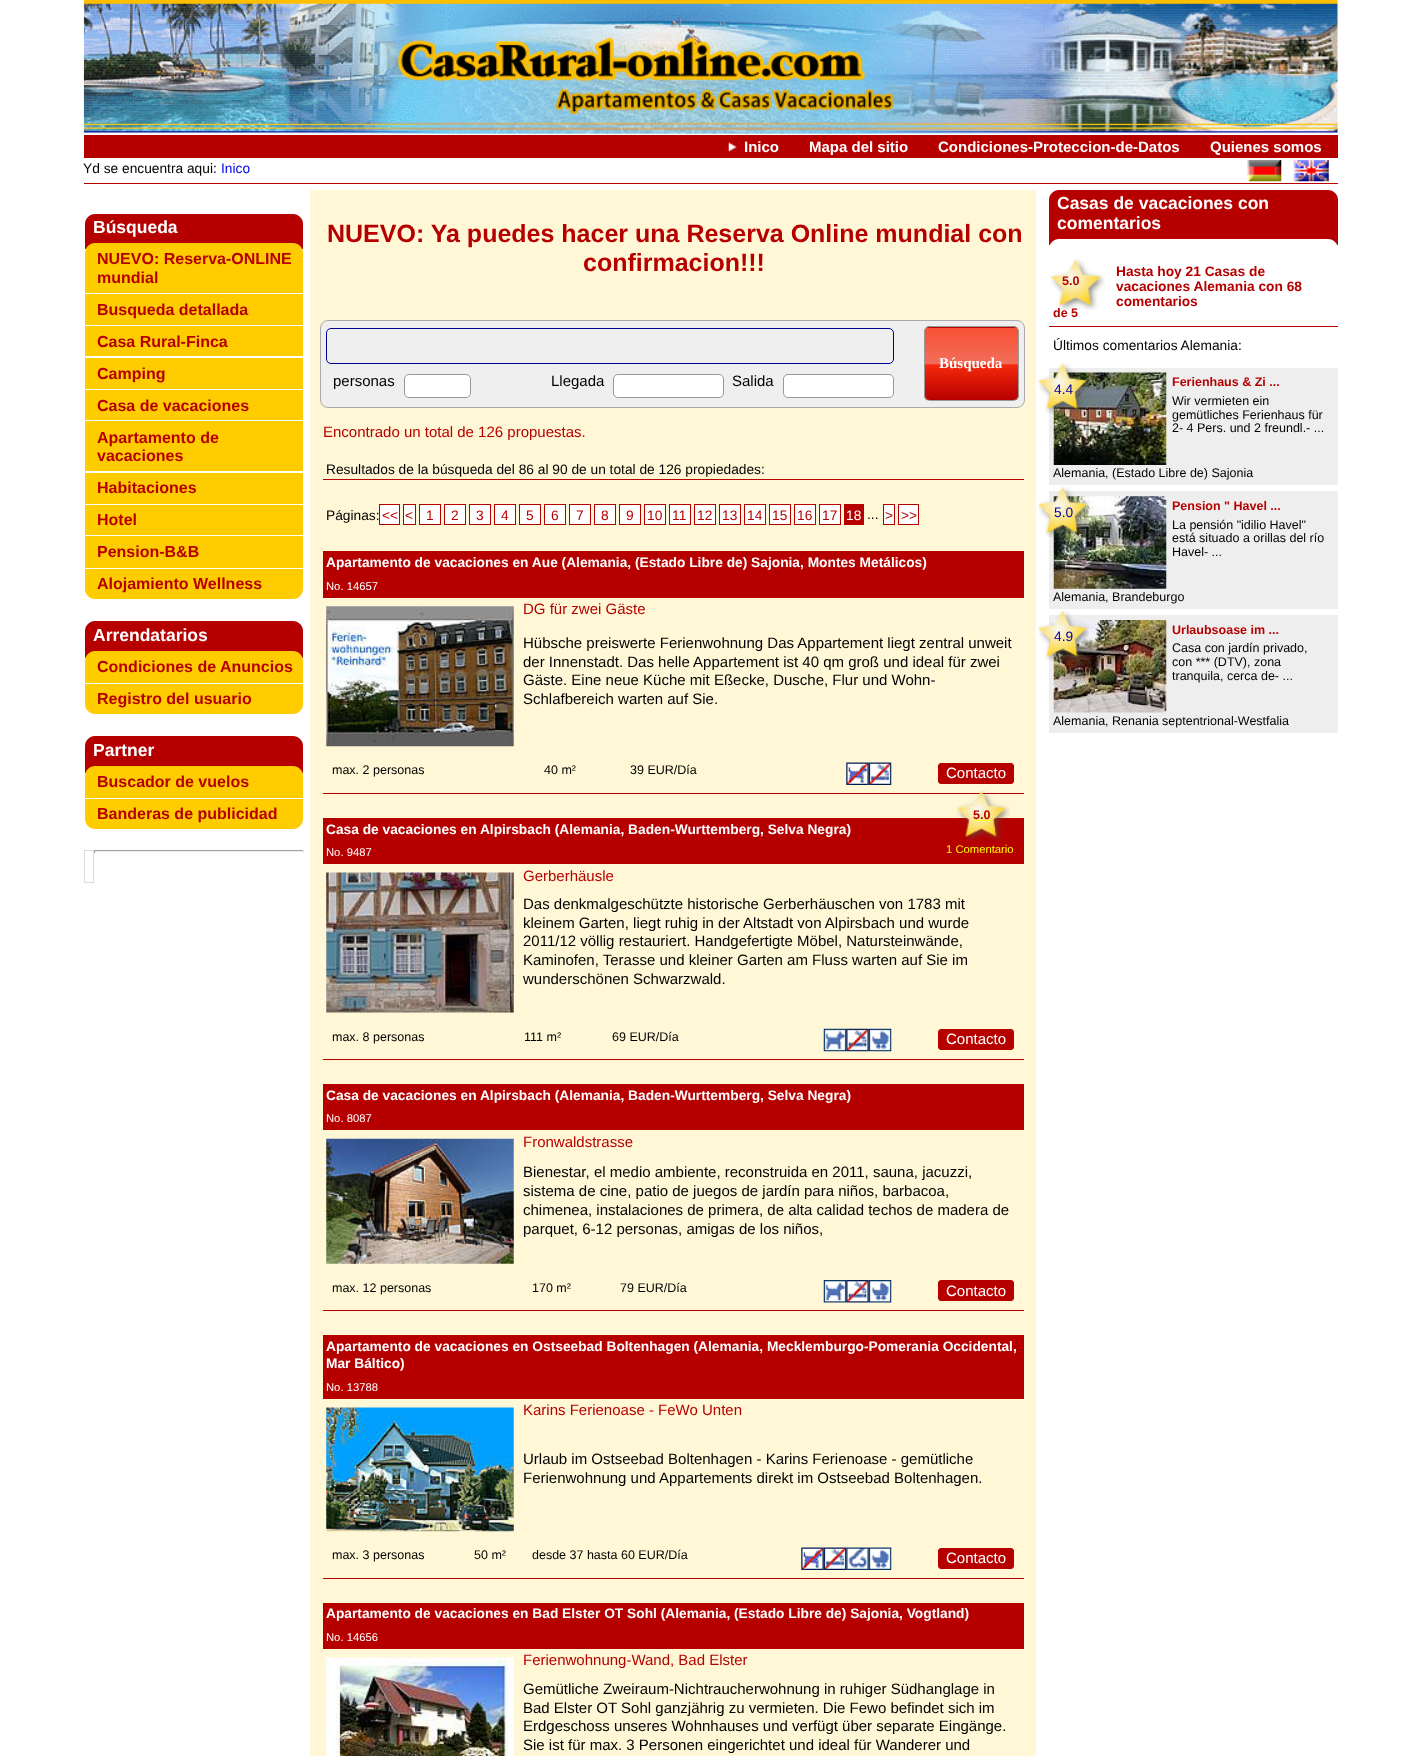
<svg xmlns="http://www.w3.org/2000/svg" width="1420" height="1756">
	<defs>
		<clipPath id="clip1"><rect x="924" y="326" width="95" height="75" rx="6" /></clipPath>
		<linearGradient id="g1" gradientUnits="userSpaceOnUse" x1="971" y1="255" x2="971" y2="328"><stop offset="0" stop-color="#F85032" /><stop offset="0.5" stop-color="#F16F5C" /><stop offset="0.51" stop-color="#F6290C" /><stop offset="1" stop-color="#B60000" /></linearGradient>
		<linearGradient id="g2" gradientUnits="userSpaceOnUse" x1="971" y1="328" x2="971" y2="400"><stop offset="0" stop-color="#F85032" /><stop offset="0.5" stop-color="#F16F5C" /><stop offset="0.51" stop-color="#F6290C" /><stop offset="1" stop-color="#B60000" /></linearGradient>
	</defs>
	<rect width="100%" height="100%" fill="#FFFFFF" />
	<image x="83" y="0" width="1255" height="134" href="assets/img1.png" />
	<rect x="84" y="135" width="1254" height="23" fill="#B60000" />
	<image x="728" y="142" width="9" height="10" href="assets/img2.png" />
	<g font-family="Liberation Sans" font-size="15" font-weight="700" fill="#FFFFFF">
		<text x="744" y="152">Inico</text>
		<text x="809" y="152">Mapa del sitio</text>
		<text x="938" y="152">Condiciones-Proteccion-de-Datos</text>
		<text x="1210" y="152">Quienes somos</text>
	</g>
	<rect x="84" y="183" width="1254" height="1" fill="#B60000" />
	<text x="83" y="173" font-family="Liberation Sans" font-size="13.75" fill="#000000">Yd se encuentra aqui:</text>
	<text x="221" y="173" font-family="Liberation Sans" font-size="13.75" fill="#0000EE">Inico</text>
	<image x="1247" y="160" width="35" height="22" href="assets/img3.png" />
	<image x="1293" y="160" width="36" height="22" href="assets/img4.png" />
	<path d="M95 214H293C298.5 214 303 218.5 303 224V249H85V224C85 218.5 89.5 214 95 214Z" fill="#B60000" />
	<text x="93" y="233" font-family="Liberation Sans" font-size="17.5" font-weight="700" fill="#FFFFFF">Búsqueda</text>
	<path d="M95 243H293C298.5 243 303 247.5 303 253V293H85V253C85 247.5 89.5 243 95 243Z" fill="#FFCC00" />
	<g font-family="Liberation Sans" font-size="16" font-weight="700" fill="#B60000">
		<text x="97" y="264">NUEVO: Reserva-ONLINE</text>
		<text x="97" y="283">mundial</text>
	</g>
	<rect x="85" y="294" width="218" height="31" fill="#FFCC00" />
	<text x="97" y="315" font-family="Liberation Sans" font-size="16" font-weight="700" fill="#B60000">Busqueda detallada</text>
	<rect x="85" y="326" width="218" height="30" fill="#FFCC00" />
	<text x="97" y="347" font-family="Liberation Sans" font-size="16" font-weight="700" fill="#B60000">Casa Rural-Finca</text>
	<rect x="85" y="358" width="218" height="31" fill="#FFCC00" />
	<text x="97" y="379" font-family="Liberation Sans" font-size="16" font-weight="700" fill="#B60000">Camping</text>
	<rect x="85" y="390" width="218" height="30" fill="#FFCC00" />
	<text x="97" y="411" font-family="Liberation Sans" font-size="16" font-weight="700" fill="#B60000">Casa de vacaciones</text>
	<rect x="85" y="421" width="218" height="50" fill="#FFCC00" />
	<g font-family="Liberation Sans" font-size="16" font-weight="700" fill="#B60000">
		<text x="97" y="443">Apartamento de</text>
		<text x="97" y="461">vacaciones</text>
	</g>
	<rect x="85" y="473" width="218" height="31" fill="#FFCC00" />
	<text x="97" y="493" font-family="Liberation Sans" font-size="16" font-weight="700" fill="#B60000">Habitaciones</text>
	<rect x="85" y="505" width="218" height="30" fill="#FFCC00" />
	<text x="97" y="525" font-family="Liberation Sans" font-size="16" font-weight="700" fill="#B60000">Hotel</text>
	<rect x="85" y="536" width="218" height="32" fill="#FFCC00" />
	<text x="97" y="557" font-family="Liberation Sans" font-size="16" font-weight="700" fill="#B60000">Pension-B&amp;B</text>
	<path d="M85 569H303V589C303 594.5 298.5 599 293 599H95C89.5 599 85 594.5 85 589Z" fill="#FFCC00" />
	<text x="97" y="589" font-family="Liberation Sans" font-size="16" font-weight="700" fill="#B60000">Alojamiento Wellness</text>
	<path d="M95 621H293C298.5 621 303 625.5 303 631V658H85V631C85 625.5 89.5 621 95 621Z" fill="#B60000" />
	<text x="93" y="641" font-family="Liberation Sans" font-size="17.5" font-weight="700" fill="#FFFFFF">Arrendatarios</text>
	<path d="M95 651H293C298.5 651 303 655.5 303 661V683H85V661C85 655.5 89.5 651 95 651Z" fill="#FFCC00" />
	<text x="97" y="672" font-family="Liberation Sans" font-size="16" font-weight="700" fill="#B60000">Condiciones de Anuncios</text>
	<path d="M85 684H303V704C303 709.5 298.5 714 293 714H95C89.5 714 85 709.5 85 704Z" fill="#FFCC00" />
	<text x="97" y="704" font-family="Liberation Sans" font-size="16" font-weight="700" fill="#B60000">Registro del usuario</text>
	<path d="M95 736H293C298.5 736 303 740.5 303 746V773H85V746C85 740.5 89.5 736 95 736Z" fill="#B60000" />
	<text x="93" y="756" font-family="Liberation Sans" font-size="17.5" font-weight="700" fill="#FFFFFF">Partner</text>
	<path d="M95 766H293C298.5 766 303 770.5 303 776V798H85V776C85 770.5 89.5 766 95 766Z" fill="#FFCC00" />
	<text x="97" y="787" font-family="Liberation Sans" font-size="16" font-weight="700" fill="#B60000">Buscador de vuelos</text>
	<path d="M85 799H303V819C303 824.5 298.5 829 293 829H95C89.5 829 85 824.5 85 819Z" fill="#FFCC00" />
	<text x="97" y="819" font-family="Liberation Sans" font-size="16" font-weight="700" fill="#B60000">Banderas de publicidad</text>
	<rect x="84.5" y="850.5" width="9" height="32" fill="none" stroke="#DCDCDC" />
	<rect x="94" y="850" width="210" height="1" fill="#9F9F9F" />
	<rect x="303" y="850" width="1" height="3" fill="#EEEEEE" />
	<rect x="94" y="851" width="210" height="1" fill="#EEEEEE" />
	<rect x="94" y="850" width="1" height="3" fill="#9F9F9F" />
	<rect x="310" y="190" width="726" height="1566" fill="#FFF7D6" />
	<g font-family="Liberation Sans" font-size="25" font-weight="700" fill="#B60000">
		<text x="327" y="242">NUEVO: Ya puedes hacer una Reserva Online mundial con</text>
		<text x="583" y="271">confirmacion!!!</text>
	</g>
	<rect x="320.5" y="320.5" width="704" height="87" rx="7.5" fill="#EFEFEF" stroke="#AAAAAA" />
	<g clip-path="url(#clip1)">
		<rect x="924" y="326" width="95" height="2" fill="url(#g1)" />
		<rect x="924" y="328" width="95" height="72" fill="url(#g2)" />
	</g>
	<rect x="924.5" y="326.5" width="94" height="74" rx="5.5" fill="none" stroke="#999999" />
	<text x="939" y="368" font-family="Liberation Serif" font-size="15" font-weight="700" fill="#FFFFFF">Búsqueda</text>
	<rect x="326.5" y="328.5" width="567" height="35" rx="4.5" fill="none" stroke="#000099" />
	<text x="333" y="386" font-family="Liberation Sans" font-size="15" fill="#000000">personas</text>
	<rect x="404.5" y="374.5" width="66" height="23" rx="4.5" fill="#FFFFFF" stroke="#999999" />
	<text x="551" y="386" font-family="Liberation Sans" font-size="15" fill="#000000">Llegada</text>
	<rect x="613.5" y="374.5" width="110" height="23" rx="4.5" fill="#FFFFFF" stroke="#999999" />
	<text x="732" y="386" font-family="Liberation Sans" font-size="15" fill="#000000">Salida</text>
	<rect x="783.5" y="374.5" width="110" height="23" rx="4.5" fill="#FFFFFF" stroke="#999999" />
	<text x="323" y="437" font-family="Liberation Sans" font-size="15" fill="#B60000">Encontrado un total de 126 propuestas.</text>
	<rect x="323" y="479" width="701" height="1" fill="#B60000" />
	<g font-family="Liberation Sans" font-size="13.75" fill="#000000">
		<text x="326" y="474">Resultados de la búsqueda del 86 al 90 de un total de 126 propiedades:</text>
		<text x="326" y="520">Páginas:</text>
	</g>
	<rect x="379.5" y="504.5" width="20" height="20" fill="#FFFFFF" stroke="#B60000" />
	<text x="382" y="520" font-family="Liberation Sans" font-size="13.75" fill="#B60000">&lt;&lt;</text>
	<rect x="403.5" y="504.5" width="12" height="20" fill="#FFFFFF" stroke="#B60000" />
	<text x="405" y="520" font-family="Liberation Sans" font-size="13.75" fill="#B60000">&lt;</text>
	<rect x="419.5" y="504.5" width="21" height="20" fill="#FFFFFF" stroke="#B60000" />
	<text x="426" y="520" font-family="Liberation Sans" font-size="13.75" fill="#B60000">1</text>
	<rect x="444.5" y="504.5" width="21" height="20" fill="#FFFFFF" stroke="#B60000" />
	<text x="451" y="520" font-family="Liberation Sans" font-size="13.75" fill="#B60000">2</text>
	<rect x="469.5" y="504.5" width="21" height="20" fill="#FFFFFF" stroke="#B60000" />
	<text x="476" y="520" font-family="Liberation Sans" font-size="13.75" fill="#B60000">3</text>
	<rect x="494.5" y="504.5" width="21" height="20" fill="#FFFFFF" stroke="#B60000" />
	<text x="501" y="520" font-family="Liberation Sans" font-size="13.75" fill="#B60000">4</text>
	<rect x="519.5" y="504.5" width="21" height="20" fill="#FFFFFF" stroke="#B60000" />
	<text x="526" y="520" font-family="Liberation Sans" font-size="13.75" fill="#B60000">5</text>
	<rect x="544.5" y="504.5" width="21" height="20" fill="#FFFFFF" stroke="#B60000" />
	<text x="551" y="520" font-family="Liberation Sans" font-size="13.75" fill="#B60000">6</text>
	<rect x="569.5" y="504.5" width="21" height="20" fill="#FFFFFF" stroke="#B60000" />
	<text x="576" y="520" font-family="Liberation Sans" font-size="13.75" fill="#B60000">7</text>
	<rect x="594.5" y="504.5" width="21" height="20" fill="#FFFFFF" stroke="#B60000" />
	<text x="601" y="520" font-family="Liberation Sans" font-size="13.75" fill="#B60000">8</text>
	<rect x="619.5" y="504.5" width="21" height="20" fill="#FFFFFF" stroke="#B60000" />
	<text x="626" y="520" font-family="Liberation Sans" font-size="13.75" fill="#B60000">9</text>
	<rect x="644.5" y="504.5" width="21" height="20" fill="#FFFFFF" stroke="#B60000" />
	<text x="647" y="520" font-family="Liberation Sans" font-size="13.75" fill="#B60000">10</text>
	<rect x="669.5" y="504.5" width="21" height="20" fill="#FFFFFF" stroke="#B60000" />
	<text x="672" y="520" font-family="Liberation Sans" font-size="13.75" fill="#B60000">11</text>
	<rect x="694.5" y="504.5" width="21" height="20" fill="#FFFFFF" stroke="#B60000" />
	<text x="697" y="520" font-family="Liberation Sans" font-size="13.75" fill="#B60000">12</text>
	<rect x="719.5" y="504.5" width="21" height="20" fill="#FFFFFF" stroke="#B60000" />
	<text x="722" y="520" font-family="Liberation Sans" font-size="13.75" fill="#B60000">13</text>
	<rect x="744.5" y="504.5" width="21" height="20" fill="#FFFFFF" stroke="#B60000" />
	<text x="747" y="520" font-family="Liberation Sans" font-size="13.75" fill="#B60000">14</text>
	<rect x="769.5" y="504.5" width="21" height="20" fill="#FFFFFF" stroke="#B60000" />
	<text x="772" y="520" font-family="Liberation Sans" font-size="13.75" fill="#B60000">15</text>
	<rect x="794.5" y="504.5" width="21" height="20" fill="#FFFFFF" stroke="#B60000" />
	<text x="797" y="520" font-family="Liberation Sans" font-size="13.75" fill="#B60000">16</text>
	<rect x="819.5" y="504.5" width="21" height="20" fill="#FFFFFF" stroke="#B60000" />
	<text x="822" y="520" font-family="Liberation Sans" font-size="13.75" fill="#B60000">17</text>
	<rect x="844" y="504" width="20" height="21" fill="#B60000" />
	<text x="846" y="520" font-family="Liberation Sans" font-size="13.75" fill="#FFFFFF">18</text>
	<text x="867" y="519" font-family="Liberation Sans" font-size="13.75" fill="#000000">...</text>
	<rect x="883.5" y="504.5" width="11" height="20" fill="#FFFFFF" stroke="#B60000" />
	<text x="885" y="520" font-family="Liberation Sans" font-size="13.75" fill="#B60000">&gt;</text>
	<rect x="898.5" y="504.5" width="20" height="20" fill="#FFFFFF" stroke="#B60000" />
	<text x="901" y="520" font-family="Liberation Sans" font-size="13.75" fill="#B60000">&gt;&gt;</text>
	<rect x="323" y="551" width="701" height="47" fill="#B60000" />
	<text x="326" y="567" font-family="Liberation Sans" font-size="13.75" font-weight="700" fill="#FFFFFF">Apartamento de vacaciones en Aue (Alemania, (Estado Libre de) Sajonia, Montes Metálicos)</text>
	<text x="326" y="590" font-family="Liberation Sans" font-size="11.25" fill="#FFFFFF">No. 14657</text>
	<image x="326" y="606" width="188" height="141" href="assets/img5.png" />
	<text x="523" y="614" font-family="Liberation Sans" font-size="15" fill="#B60000">DG für zwei Gäste</text>
	<g font-family="Liberation Sans" font-size="15" fill="#000000">
		<text x="523" y="648">Hübsche preiswerte Ferienwohnung Das Appartement liegt zentral unweit</text>
		<text x="523" y="667">der Innenstadt. Das helle Appartement ist 40 qm groß und ideal für zwei</text>
		<text x="523" y="685">Gäste. Eine neue Küche mit Eßecke, Dusche, Flur und Wohn-</text>
		<text x="523" y="704">Schlafbereich warten auf Sie.</text>
	</g>
	<rect x="323" y="793" width="701" height="1" fill="#B60000" />
	<g font-family="Liberation Sans" font-size="12.5" fill="#000000">
		<text x="332" y="774">max. 2 personas</text>
		<text x="544" y="774">40 m²</text>
		<text x="630" y="774">39 EUR/Día</text>
	</g>
	<image x="846" y="762" width="23" height="23" href="assets/img6.png" />
	<image x="868" y="762" width="24" height="23" href="assets/img7.png" />
	<rect x="938.5" y="763.5" width="75" height="20" rx="2.5" fill="#B60000" stroke="#B60000" />
	<text x="946" y="778" font-family="Liberation Sans" font-size="15" fill="#FFFFFF">Contacto</text>
	<rect x="323" y="818" width="701" height="46" fill="#B60000" />
	<text x="326" y="834" font-family="Liberation Sans" font-size="13.75" font-weight="700" fill="#FFFFFF">Casa de vacaciones en Alpirsbach (Alemania, Baden-Wurttemberg, Selva Negra)</text>
	<image x="956" y="790" width="54" height="51" href="assets/img8.png" />
	<text x="973" y="819" font-family="Liberation Sans" font-size="12.5" font-weight="700" fill="#B60000">5.0</text>
	<rect x="973" y="820" width="17" height="1" fill="#FFFF00" />
	<text x="946" y="853" font-family="Liberation Sans" font-size="11.25" fill="#FFFF00">1 Comentario</text>
	<text x="326" y="856" font-family="Liberation Sans" font-size="11.25" fill="#FFFFFF">No. 9487</text>
	<image x="326" y="872" width="188" height="141" href="assets/img9.png" />
	<text x="523" y="881" font-family="Liberation Sans" font-size="15" fill="#B60000">Gerberhäusle</text>
	<g font-family="Liberation Sans" font-size="15" fill="#000000">
		<text x="523" y="909">Das denkmalgeschützte historische Gerberhäuschen von 1783 mit</text>
		<text x="523" y="928">kleinem Garten, liegt ruhig in der Altstadt von Alpirsbach und wurde</text>
		<text x="523" y="946">2011/12 völlig restauriert. Handgefertigte Möbel, Natursteinwände,</text>
		<text x="523" y="965">Kaminofen, Terasse und kleiner Garten am Fluss warten auf Sie im</text>
		<text x="523" y="984">wunderschönen Schwarzwald.</text>
	</g>
	<rect x="323" y="1059" width="701" height="1" fill="#B60000" />
	<g font-family="Liberation Sans" font-size="12.5" fill="#000000">
		<text x="332" y="1041">max. 8 personas</text>
		<text x="524" y="1041">111 m²</text>
		<text x="612" y="1041">69 EUR/Día</text>
	</g>
	<image x="823" y="1028" width="24" height="24" href="assets/img10.png" />
	<image x="846" y="1028" width="23" height="24" href="assets/img11.png" />
	<image x="868" y="1028" width="24" height="24" href="assets/img12.png" />
	<rect x="938.5" y="1029.5" width="75" height="20" rx="2.5" fill="#B60000" stroke="#B60000" />
	<text x="946" y="1044" font-family="Liberation Sans" font-size="15" fill="#FFFFFF">Contacto</text>
	<rect x="323" y="1084" width="701" height="46" fill="#B60000" />
	<text x="326" y="1100" font-family="Liberation Sans" font-size="13.75" font-weight="700" fill="#FFFFFF">Casa de vacaciones en Alpirsbach (Alemania, Baden-Wurttemberg, Selva Negra)</text>
	<text x="326" y="1122" font-family="Liberation Sans" font-size="11.25" fill="#FFFFFF">No. 8087</text>
	<image x="326" y="1138" width="188" height="126" href="assets/img13.png" />
	<text x="523" y="1147" font-family="Liberation Sans" font-size="15" fill="#B60000">Fronwaldstrasse</text>
	<g font-family="Liberation Sans" font-size="15" fill="#000000">
		<text x="523" y="1177">Bienestar, el medio ambiente, reconstruida en 2011, sauna, jacuzzi,</text>
		<text x="523" y="1196">sistema de cine, patio de juegos de jardín para niños, barbacoa,</text>
		<text x="523" y="1215">chimenea, instalaciones de primera, de alta calidad techos de madera de</text>
		<text x="523" y="1234">parquet, 6-12 personas, amigas de los niños,</text>
	</g>
	<rect x="323" y="1310" width="701" height="1" fill="#B60000" />
	<g font-family="Liberation Sans" font-size="12.5" fill="#000000">
		<text x="332" y="1292">max. 12 personas</text>
		<text x="532" y="1292">170 m²</text>
		<text x="620" y="1292">79 EUR/Día</text>
	</g>
	<image x="823" y="1280" width="24" height="23" href="assets/img14.png" />
	<image x="846" y="1280" width="23" height="23" href="assets/img15.png" />
	<image x="868" y="1280" width="24" height="23" href="assets/img16.png" />
	<rect x="938.5" y="1280.5" width="75" height="20" rx="2.5" fill="#B60000" stroke="#B60000" />
	<text x="946" y="1296" font-family="Liberation Sans" font-size="15" fill="#FFFFFF">Contacto</text>
	<rect x="323" y="1335" width="701" height="64" fill="#B60000" />
	<g font-family="Liberation Sans" font-size="13.75" font-weight="700" fill="#FFFFFF">
		<text x="326" y="1351">Apartamento de vacaciones en Ostseebad Boltenhagen (Alemania, Mecklemburgo-Pomerania Occidental,</text>
		<text x="326" y="1368">Mar Báltico)</text>
	</g>
	<text x="326" y="1391" font-family="Liberation Sans" font-size="11.25" fill="#FFFFFF">No. 13788</text>
	<image x="326" y="1407" width="188" height="125" href="assets/img17.png" />
	<text x="523" y="1415" font-family="Liberation Sans" font-size="15" fill="#B60000">Karins Ferienoase - FeWo Unten</text>
	<g font-family="Liberation Sans" font-size="15" fill="#000000">
		<text x="523" y="1464">Urlaub im Ostseebad Boltenhagen - Karins Ferienoase - gemütliche</text>
		<text x="523" y="1483">Ferienwohnung und Appartements direkt im Ostseebad Boltenhagen.</text>
	</g>
	<rect x="323" y="1578" width="701" height="1" fill="#B60000" />
	<g font-family="Liberation Sans" font-size="12.5" fill="#000000">
		<text x="332" y="1559">max. 3 personas</text>
		<text x="474" y="1559">50 m²</text>
		<text x="532" y="1559">desde 37 hasta 60 EUR/Día</text>
	</g>
	<image x="801" y="1547" width="23" height="23" href="assets/img18.png" />
	<image x="823" y="1547" width="24" height="23" href="assets/img19.png" />
	<image x="846" y="1547" width="23" height="23" href="assets/img20.png" />
	<image x="868" y="1547" width="24" height="23" href="assets/img21.png" />
	<rect x="938.5" y="1548.5" width="75" height="20" rx="2.5" fill="#B60000" stroke="#B60000" />
	<text x="946" y="1563" font-family="Liberation Sans" font-size="15" fill="#FFFFFF">Contacto</text>
	<rect x="323" y="1603" width="701" height="46" fill="#B60000" />
	<text x="326" y="1618" font-family="Liberation Sans" font-size="13.75" font-weight="700" fill="#FFFFFF">Apartamento de vacaciones en Bad Elster OT Sohl (Alemania, (Estado Libre de) Sajonia, Vogtland)</text>
	<text x="326" y="1641" font-family="Liberation Sans" font-size="11.25" fill="#FFFFFF">No. 14656</text>
	<image x="326" y="1657" width="188" height="99" href="assets/img22.png" />
	<text x="523" y="1665" font-family="Liberation Sans" font-size="15" fill="#B60000">Ferienwohnung-Wand, Bad Elster</text>
	<g font-family="Liberation Sans" font-size="15" fill="#000000">
		<text x="523" y="1694">Gemütliche Zweiraum-Nichtraucherwohnung in ruhiger Südhanglage in</text>
		<text x="523" y="1713">Bad Elster OT Sohl ganzjährig zu vermieten. Die Fewo befindet sich im</text>
		<text x="523" y="1731">Erdgeschoss unseres Wohnhauses und verfügt über separate Eingänge.</text>
		<text x="523" y="1750">Sie ist für max. 3 Personen eingerichtet und ideal für Wanderer und</text>
	</g>
	<path d="M1059 190H1328C1333.5 190 1338 194.5 1338 200V245H1049V200C1049 194.5 1053.5 190 1059 190Z" fill="#B60000" />
	<g font-family="Liberation Sans" font-size="17.5" font-weight="700" fill="#FFFFFF">
		<text x="1057" y="209">Casas de vacaciones con</text>
		<text x="1057" y="229">comentarios</text>
	</g>
	<path d="M1059 239H1328C1333.5 239 1338 243.5 1338 249V253H1049V249C1049 243.5 1053.5 239 1059 239Z" fill="#FFFFFF" />
	<image x="1050" y="259" width="55" height="51" href="assets/img23.png" />
	<g font-family="Liberation Sans" font-size="12.5" font-weight="700" fill="#B60000">
		<text x="1062" y="285">5.0</text>
		<text x="1053" y="317">de 5</text>
	</g>
	<g font-family="Liberation Sans" font-size="13.75" font-weight="700" fill="#B60000">
		<text x="1116" y="276">Hasta hoy 21 Casas de</text>
		<text x="1116" y="291">vacaciones Alemania con 68</text>
		<text x="1116" y="306">comentarios</text>
	</g>
	<rect x="1049" y="326" width="289" height="1" fill="#B60000" />
	<text x="1053" y="350" font-family="Liberation Sans" font-size="13.75" fill="#000000">Últimos comentarios Alemania:</text>
	<rect x="1049" y="368" width="289" height="117" fill="#EEEEEE" />
	<image x="1053" y="372" width="114" height="93" href="assets/img24.png" />
	<text x="1172" y="386" font-family="Liberation Sans" font-size="12.5" font-weight="700" fill="#B60000">Ferienhaus &amp; Zi ...</text>
	<g font-family="Liberation Sans" font-size="12.5" fill="#000000">
		<text x="1172" y="405">Wir vermieten ein</text>
		<text x="1172" y="419">gemütliches Ferienhaus für</text>
		<text x="1172" y="432">2- 4 Pers. und 2 freundl.- ...</text>
	</g>
	<image x="1038" y="362" width="51" height="52" href="assets/img25.png" />
	<text x="1054" y="394" font-family="Liberation Sans" font-size="13.75" fill="#000099">4.4</text>
	<text x="1053" y="477" font-family="Liberation Sans" font-size="12.5" fill="#000000">Alemania, (Estado Libre de) Sajonia</text>
	<rect x="1049" y="491" width="289" height="118" fill="#EEEEEE" />
	<image x="1053" y="496" width="114" height="93" href="assets/img26.png" />
	<text x="1172" y="510" font-family="Liberation Sans" font-size="12.5" font-weight="700" fill="#B60000">Pension " Havel ...</text>
	<g font-family="Liberation Sans" font-size="12.5" fill="#000000">
		<text x="1172" y="529">La pensión "idilio Havel"</text>
		<text x="1172" y="542">está situado a orillas del río</text>
		<text x="1172" y="556">Havel- ...</text>
	</g>
	<image x="1038" y="486" width="51" height="52" href="assets/img27.png" />
	<text x="1054" y="517" font-family="Liberation Sans" font-size="13.75" fill="#000099">5.0</text>
	<text x="1053" y="601" font-family="Liberation Sans" font-size="12.5" fill="#000000">Alemania, Brandeburgo</text>
	<rect x="1049" y="615" width="289" height="118" fill="#EEEEEE" />
	<image x="1053" y="620" width="114" height="93" href="assets/img28.png" />
	<text x="1172" y="634" font-family="Liberation Sans" font-size="12.5" font-weight="700" fill="#B60000">Urlaubsoase im ...</text>
	<g font-family="Liberation Sans" font-size="12.5" fill="#000000">
		<text x="1172" y="652">Casa con jardín privado,</text>
		<text x="1172" y="666">con *** (DTV), zona</text>
		<text x="1172" y="680">tranquila, cerca de- ...</text>
	</g>
	<image x="1038" y="610" width="51" height="51" href="assets/img29.png" />
	<text x="1054" y="641" font-family="Liberation Sans" font-size="13.75" fill="#000099">4.9</text>
	<text x="1053" y="725" font-family="Liberation Sans" font-size="12.5" fill="#000000">Alemania, Renania septentrional-Westfalia</text>
</svg>
